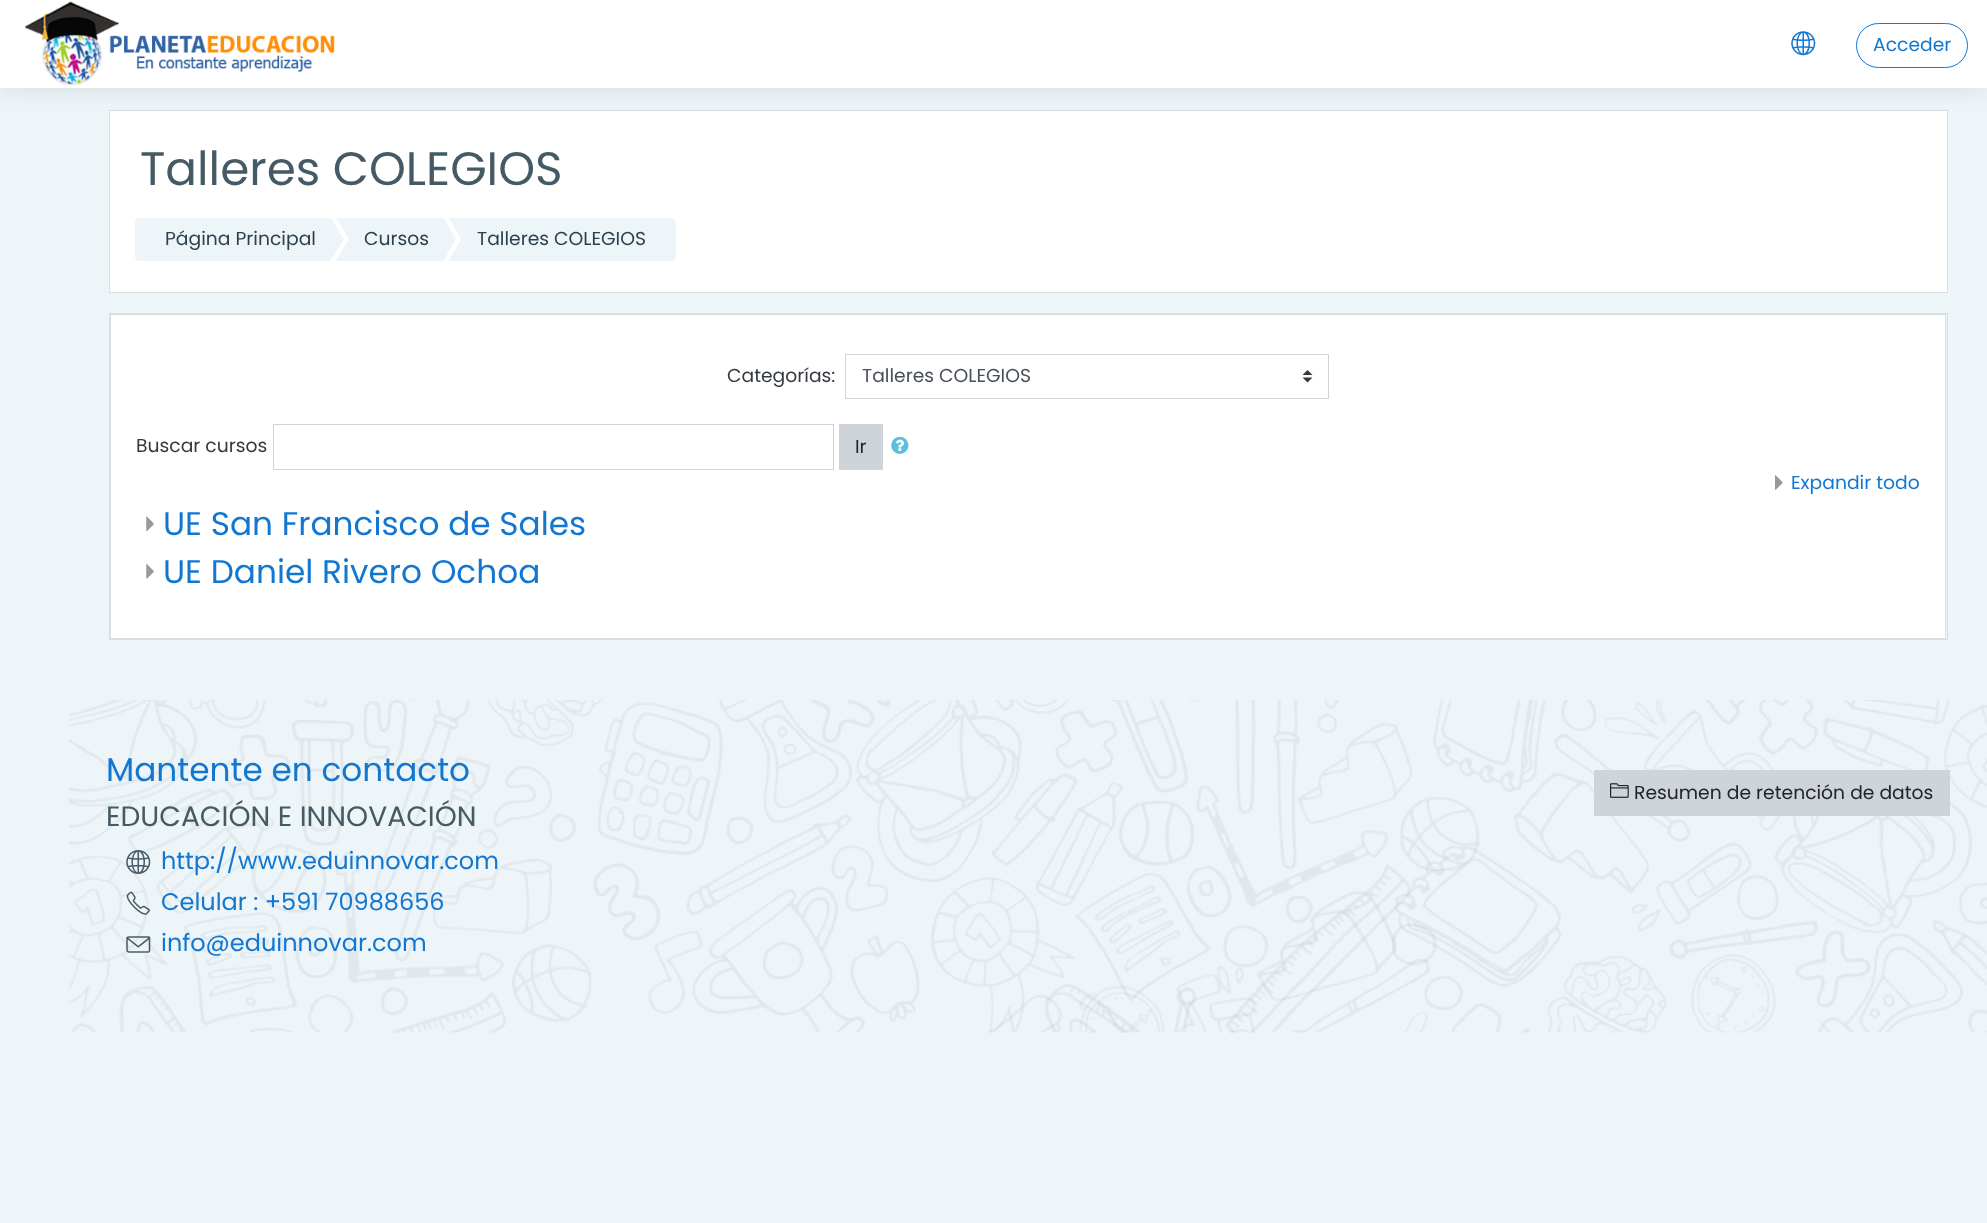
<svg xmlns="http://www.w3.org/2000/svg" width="1987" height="1223">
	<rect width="100%" height="100%" fill="#EEF5F9" />
	<rect x="109.5" y="110.5" width="1838" height="182" fill="#FFFFFF" stroke="#D7DFE3" />
	<rect x="0" y="0" width="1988" height="88" fill="#000000" fill-opacity="0.1" filter="blur(12.5px)" />
	<rect x="0" y="0" width="1987" height="88" fill="#FFFFFF" />
	<image x="25" y="1" width="310" height="84" href="assets/img1.png" />
	<image x="1791" y="31" width="25" height="25" href="assets/img2.png" />
	<rect x="1856.5" y="23.5" width="111" height="44" rx="22" fill="none" stroke="#1177D1" />
	<text x="1873" y="51" font-family="Poppins" font-size="18.75" fill="#1177D1">Acceder</text>
	<text x="140" y="185" font-family="Poppins" font-size="46.9" fill="#455A64">Talleres COLEGIOS</text>
	<path d="M140 218H331V261H140C137 261 135 259 135 256V223C135 220 137 218 140 218Z" fill="#EEF5F9" />
	<text x="165" y="245" font-family="Poppins" font-size="18.75" fill="#2C3F4C">Página Principal</text>
	<rect x="336" y="218" width="108" height="43" fill="#EEF5F9" />
	<path d="M336 260V218L349 239Z" fill="#FFFFFF" />
	<path d="M331 260V218L344 239Z" fill="#EEF5F9" />
	<text x="364" y="245" font-family="Poppins" font-size="18.75" fill="#2C3F4C">Cursos</text>
	<path d="M449 218H671C674 218 676 220 676 223V256C676 259 674 261 671 261H449Z" fill="#EEF5F9" />
	<path d="M449 260V218L461 239Z" fill="#FFFFFF" />
	<path d="M444 260V218L456 239Z" fill="#EEF5F9" />
	<text x="477" y="245" font-family="Poppins" font-size="18.75" fill="#2C3F4C">Talleres COLEGIOS</text>
	<rect x="109.5" y="313.5" width="1838" height="326" fill="none" stroke="#D7DFE3" />
	<rect x="110.5" y="314.5" width="1835" height="324" fill="#FFFFFF" stroke="#D7DFE3" />
	<text x="727" y="382" font-family="Poppins" font-size="18.75" fill="#343A40">Categorías:</text>
	<image x="1303" y="370" width="10" height="13" href="assets/img3.png" />
	<rect x="845.5" y="354.5" width="483" height="44" fill="none" stroke="#CED4DA" />
	<text x="862" y="382" font-family="Poppins" font-size="18.75" fill="#495057">Talleres COLEGIOS</text>
	<text x="136" y="452" font-family="Poppins" font-size="18.75" fill="#343A40">Buscar cursos</text>
	<rect x="273.5" y="424.5" width="560" height="45" fill="none" stroke="#CED4DA" />
	<rect x="839" y="424" width="44" height="46" fill="#CED4DA" />
	<text x="855" y="453" font-family="Poppins" font-size="18.75" fill="#212529">Ir</text>
	<image x="891" y="436" width="18" height="18" href="assets/img4.png" />
	<image x="1775" y="475" width="8" height="15" href="assets/img5.png" />
	<text x="1791" y="489" font-family="Poppins" font-size="18.75" fill="#1177D1">Expandir todo</text>
	<image x="146" y="516" width="8" height="16" href="assets/img6.png" />
	<text x="163" y="535" font-family="Poppins" font-size="32.75" fill="#1177D1">UE San Francisco de Sales</text>
	<image x="146" y="563" width="8" height="16" href="assets/img7.png" />
	<text x="163" y="583" font-family="Poppins" font-size="32.75" fill="#1177D1">UE Daniel Rivero Ochoa</text>
	<image x="69" y="700" width="1918" height="333" href="assets/img8.png" />
	<text x="106" y="781" font-family="Poppins" font-size="32.75" fill="#1177D1">Mantente en contacto</text>
	<text x="106" y="826" font-family="Poppins" font-size="28.1" fill="#455A64">EDUCACIÓN E INNOVACIÓN</text>
	<image x="126" y="850" width="25" height="24" href="assets/img9.png" />
	<text x="161" y="869" font-family="Poppins" font-size="24" fill="#1177D1">http://www.eduinnovar.com</text>
	<image x="126" y="891" width="24" height="24" href="assets/img10.png" />
	<text x="161" y="910" font-family="Poppins" font-size="24" fill="#1177D1">Celular : +591 70988656</text>
	<image x="126" y="936" width="25" height="17" href="assets/img11.png" />
	<text x="161" y="951" font-family="Poppins" font-size="24" fill="#1177D1">info@eduinnovar.com</text>
	<rect x="1594" y="770" width="356" height="46" fill="#CED4DA" />
	<image x="1610" y="783" width="19" height="15" href="assets/img12.png" />
	<text x="1634" y="799" font-family="Poppins" font-size="18.75" fill="#212529">Resumen de retención de datos</text>
</svg>
